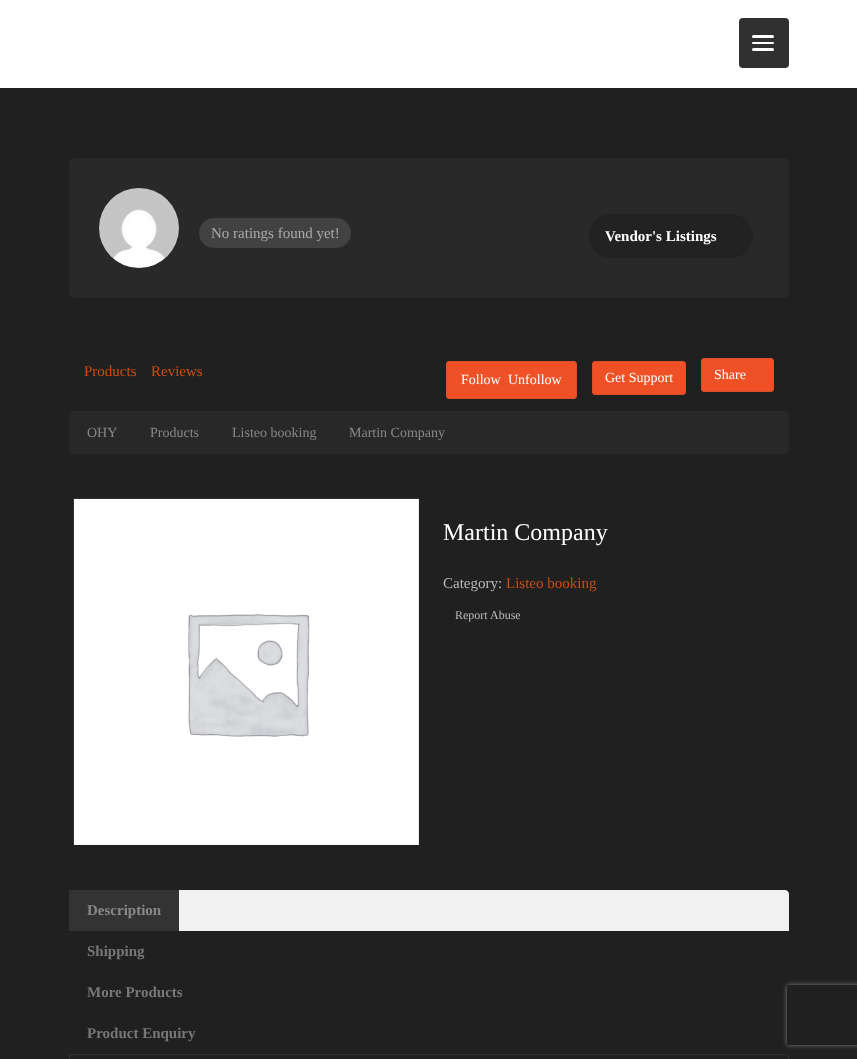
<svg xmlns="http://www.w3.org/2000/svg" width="857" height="1059">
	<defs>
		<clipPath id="clip1"><path d="M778 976H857V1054H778ZM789 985H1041C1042 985 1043 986 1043 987V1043C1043 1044 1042 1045 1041 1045H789C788 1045 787 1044 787 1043V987C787 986 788 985 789 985Z" clip-rule="evenodd" /></clipPath>
	</defs>
	<rect width="100%" height="100%" fill="#202020" />
	<rect x="0" y="0" width="857" height="88" fill="#FFFFFF" />
	<rect x="739" y="18" width="50" height="50" rx="4" fill="#303030" />
	<rect x="752" y="48" width="22" height="3" rx="1.5" fill="#FFFFFF" />
	<rect x="752" y="35" width="22" height="3" rx="1.5" fill="#FFFFFF" />
	<rect x="752" y="42" width="22" height="2" rx="1" fill="#FFFFFF" />
	<rect x="69" y="158" width="720" height="140" rx="5" fill="#292929" />
	<image x="99" y="188" width="80" height="80" href="assets/img1.png" />
	<rect x="199" y="218" width="152" height="30" rx="15" fill="#424242" />
	<text x="211" y="238" font-family="Liberation Serif" font-size="15" fill="#AAAAAA">No ratings found yet!</text>
	<rect x="589" y="214" width="164" height="44" rx="22" fill="#222222" />
	<text x="605" y="241" font-family="Liberation Serif" font-size="15" font-weight="700" fill="#FFFFFF">Vendor's Listings</text>
	<g font-family="Liberation Serif" font-size="15" fill="#C84F10">
		<text x="84" y="376">Products</text>
		<text x="151" y="376">Reviews</text>
	</g>
	<rect x="446.5" y="361.5" width="130" height="37" rx="2.5" fill="#F05025" stroke="#DA502B" />
	<g font-family="Liberation Serif" font-size="14" fill="#FFFFFF">
		<text x="461" y="384">Follow</text>
		<text x="508" y="384">Unfollow</text>
	</g>
	<rect x="592.5" y="361.5" width="93" height="33" rx="2.5" fill="#F05025" stroke="#DA502B" />
	<text x="605" y="382" font-family="Liberation Serif" font-size="14" fill="#FFFFFF">Get Support</text>
	<rect x="701.5" y="358.5" width="72" height="33" rx="2.5" fill="#F05025" stroke="#DA502B" />
	<text x="714" y="379" font-family="Liberation Serif" font-size="14" fill="#FFFFFF">Share</text>
	<rect x="69" y="411" width="720" height="43" rx="5" fill="#282828" />
	<g font-family="Liberation Serif" font-size="14" fill="#888888">
		<text x="87" y="437">OHY</text>
		<text x="150" y="437">Products</text>
		<text x="232" y="437">Listeo booking</text>
		<text x="349" y="437">Martin Company</text>
	</g>
	<image x="73" y="498" width="346" height="347" href="assets/img2.png" />
	<text x="443" y="540" font-family="Liberation Serif" font-size="24" fill="#FFFFFF">Martin Company</text>
	<text x="443" y="588" font-family="Liberation Serif" font-size="15" fill="#BBBBBB">Category:</text>
	<text x="506" y="588" font-family="Liberation Serif" font-size="15" fill="#C84F10">Listeo booking</text>
	<text x="455" y="619" font-family="Liberation Serif" font-size="12" fill="#BBBBBB">Report Abuse</text>
	<path d="M73 890H785C787 890 789 892 789 894V931H69V894C69 892 71 890 73 890Z" fill="#F1F1F1" />
	<rect x="69" y="890" width="110" height="41" fill="#333333" />
	<text x="87" y="915" font-family="Liberation Serif" font-size="15" font-weight="700" fill="#888888">Description</text>
	<g font-family="Liberation Serif" font-size="15" font-weight="700" fill="#777777">
		<text x="87" y="956">Shipping</text>
		<text x="87" y="997">More Products</text>
		<text x="87" y="1038">Product Enquiry</text>
	</g>
	<path d="M69.5 1054.5H785C787 1054.5 788.5 1056 788.5 1058V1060C788.5 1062 787 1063.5 785 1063.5H73C71 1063.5 69.5 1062 69.5 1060Z" fill="none" stroke="#333333" />
	<g clip-path="url(#clip1)">
		<rect x="787" y="985" width="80" height="60" rx="2" fill="#808080" filter="blur(2.5px)" />
	</g>
</svg>
